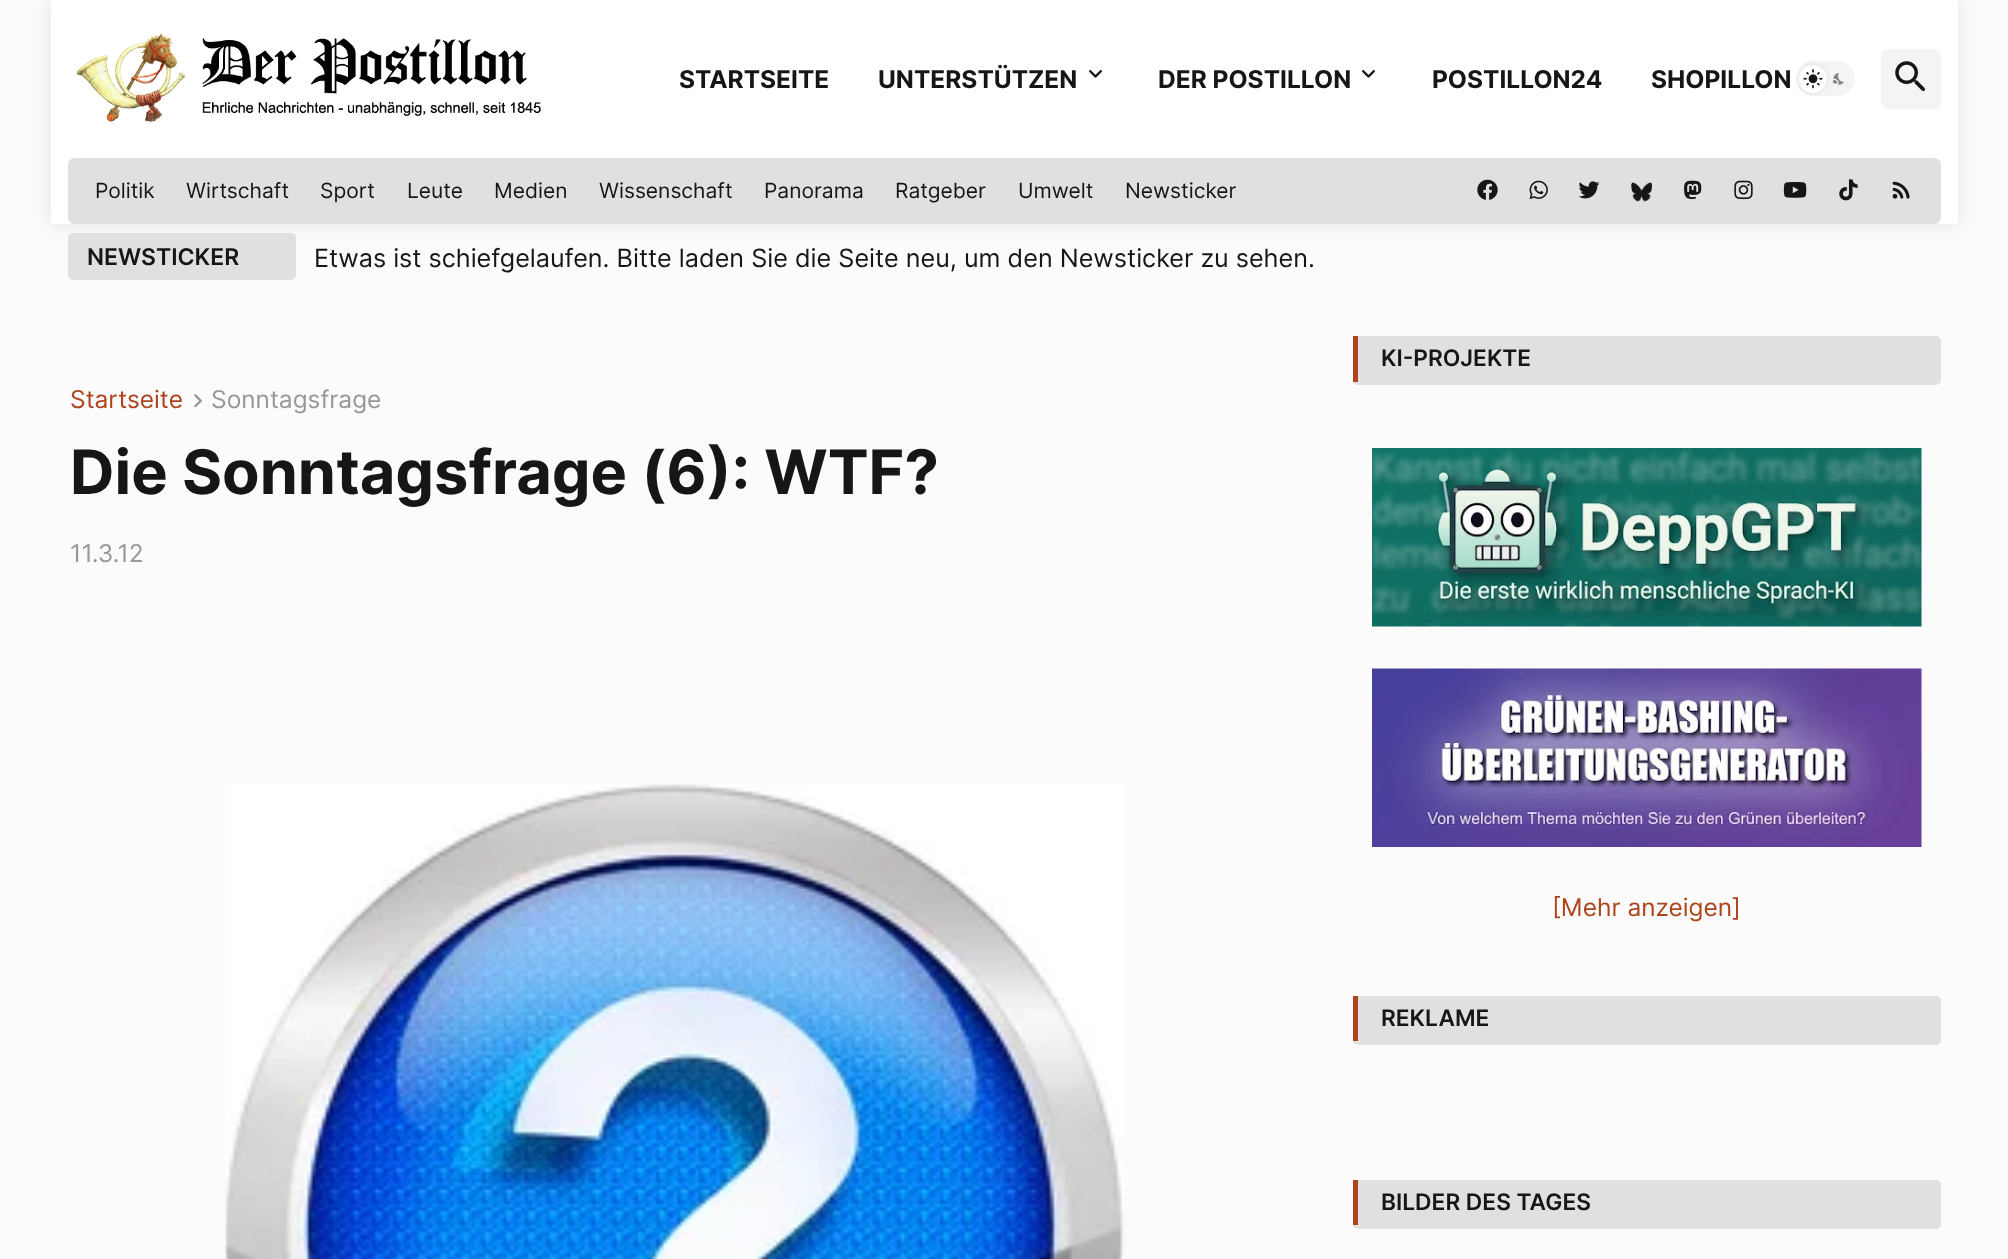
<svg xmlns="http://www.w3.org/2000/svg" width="2008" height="1259">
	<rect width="100%" height="100%" fill="#FBFBFB" />
	<rect x="51" y="0" width="1907" height="224" fill="#000000" fill-opacity="0.1" filter="blur(9px)" />
	<rect x="51" y="0" width="1907" height="224" fill="#FFFFFF" />
	<image x="76" y="33" width="465" height="89" href="assets/img1.png" />
	<g font-family="Inter" font-size="24.5" font-weight="700" fill="#161618">
		<text x="679" y="88">STARTSEITE</text>
		<text x="878" y="88">UNTERSTÜTZEN</text>
	</g>
	<image x="1089" y="70" width="13" height="8" href="assets/img2.png" />
	<text x="1158" y="88" font-family="Inter" font-size="24.5" font-weight="700" fill="#161618">DER POSTILLON</text>
	<image x="1362" y="70" width="13" height="8" href="assets/img2.png" />
	<g font-family="Inter" font-size="24.5" font-weight="700" fill="#161618">
		<text x="1432" y="88">POSTILLON24</text>
		<text x="1651" y="88">SHOPILLON</text>
	</g>
	<rect x="1796" y="61" width="59" height="35" rx="17.5" fill="#F3F5F5" />
	<image x="1832" y="73" width="12" height="12" href="assets/img4.png" />
	<rect x="1799" y="65" width="28" height="28" rx="14" fill="#000000" fill-opacity="0.1" filter="blur(2px)" />
	<circle cx="1813" cy="79" r="14" fill="#FFFFFF" />
	<image x="1803" y="69" width="20" height="20" href="assets/img3.png" />
	<rect x="1881" y="49" width="60" height="60" rx="7" fill="#F3F5F5" />
	<image x="1895" y="61" width="31" height="31" href="assets/img5.png" />
	<rect x="68" y="158" width="1873" height="66" rx="7" fill="#E0E0E0" />
	<g font-family="Inter" font-size="21" fill="#161618">
		<text x="95" y="198">Politik</text>
		<text x="186" y="198">Wirtschaft</text>
		<text x="320" y="198">Sport</text>
		<text x="407" y="198">Leute</text>
		<text x="494" y="198">Medien</text>
		<text x="599" y="198">Wissenschaft</text>
		<text x="764" y="198">Panorama</text>
		<text x="895" y="198">Ratgeber</text>
		<text x="1018" y="198">Umwelt</text>
		<text x="1125" y="198">Newsticker</text>
	</g>
	<image x="1477" y="179" width="21" height="21" href="assets/img6.png" />
	<image x="1529" y="180" width="19" height="19" href="assets/img7.png" />
	<image x="1578" y="181" width="22" height="18" href="assets/img8.png" />
	<image x="1631" y="182" width="21" height="20" href="assets/img9.png" />
	<image x="1684" y="180" width="18" height="20" href="assets/img10.png" />
	<image x="1734" y="180" width="19" height="20" href="assets/img11.png" />
	<image x="1783" y="182" width="24" height="16" href="assets/img12.png" />
	<image x="1839" y="179" width="19" height="22" href="assets/img13.png" />
	<image x="1892" y="181" width="18" height="18" href="assets/img14.png" />
	<rect x="68" y="233" width="228" height="47" rx="5" fill="#E0E0E0" />
	<text x="87" y="265" font-family="Inter" font-size="23" font-weight="600" fill="#161618">NEWSTICKER</text>
	<text x="314" y="267" font-family="Inter" font-size="25.2" fill="#161618">Etwas ist schiefgelaufen. Bitte laden Sie die Seite neu, um den Newsticker zu sehen.</text>
	<text x="70" y="408" font-family="Inter" font-size="24.5" fill="#AD441C">Startseite</text>
	<image x="194" y="394" width="8" height="14" href="assets/img15.png" />
	<text x="211" y="408" font-family="Inter" font-size="24.5" fill="#979797">Sonntagsfrage</text>
	<text x="70" y="494" font-family="Inter" font-size="61.25" font-weight="700" fill="#161618">Die Sonntagsfrage (6): WTF?</text>
	<text x="70" y="562" font-family="Inter" font-size="24.5" fill="#979797">11.3.12</text>
	<image x="225" y="784" width="899" height="475" href="assets/img16.png" />
	<rect x="1353" y="336" width="588" height="49" rx="5" fill="#E0E0E0" />
	<rect x="1353" y="336" width="5" height="46" fill="#AD441C" />
	<text x="1381" y="366" font-family="Inter" font-size="22.75" font-weight="600" fill="#161618">KI-PROJEKTE</text>
	<image x="1372" y="448" width="550" height="179" href="assets/img17.png" />
	<image x="1372" y="668" width="550" height="179" href="assets/img18.png" />
	<text x="1552" y="916" font-family="Inter" font-size="24.5" fill="#AD441C">[Mehr anzeigen]</text>
	<rect x="1353" y="996" width="588" height="49" rx="5" fill="#E0E0E0" />
	<rect x="1353" y="996" width="5" height="45" fill="#AD441C" />
	<text x="1381" y="1026" font-family="Inter" font-size="22.75" font-weight="600" fill="#161618">REKLAME</text>
	<rect x="1353" y="1180" width="588" height="49" rx="5" fill="#E0E0E0" />
	<rect x="1353" y="1180" width="5" height="45" fill="#AD441C" />
	<text x="1381" y="1210" font-family="Inter" font-size="22.75" font-weight="600" fill="#161618">BILDER DES TAGES</text>
</svg>
